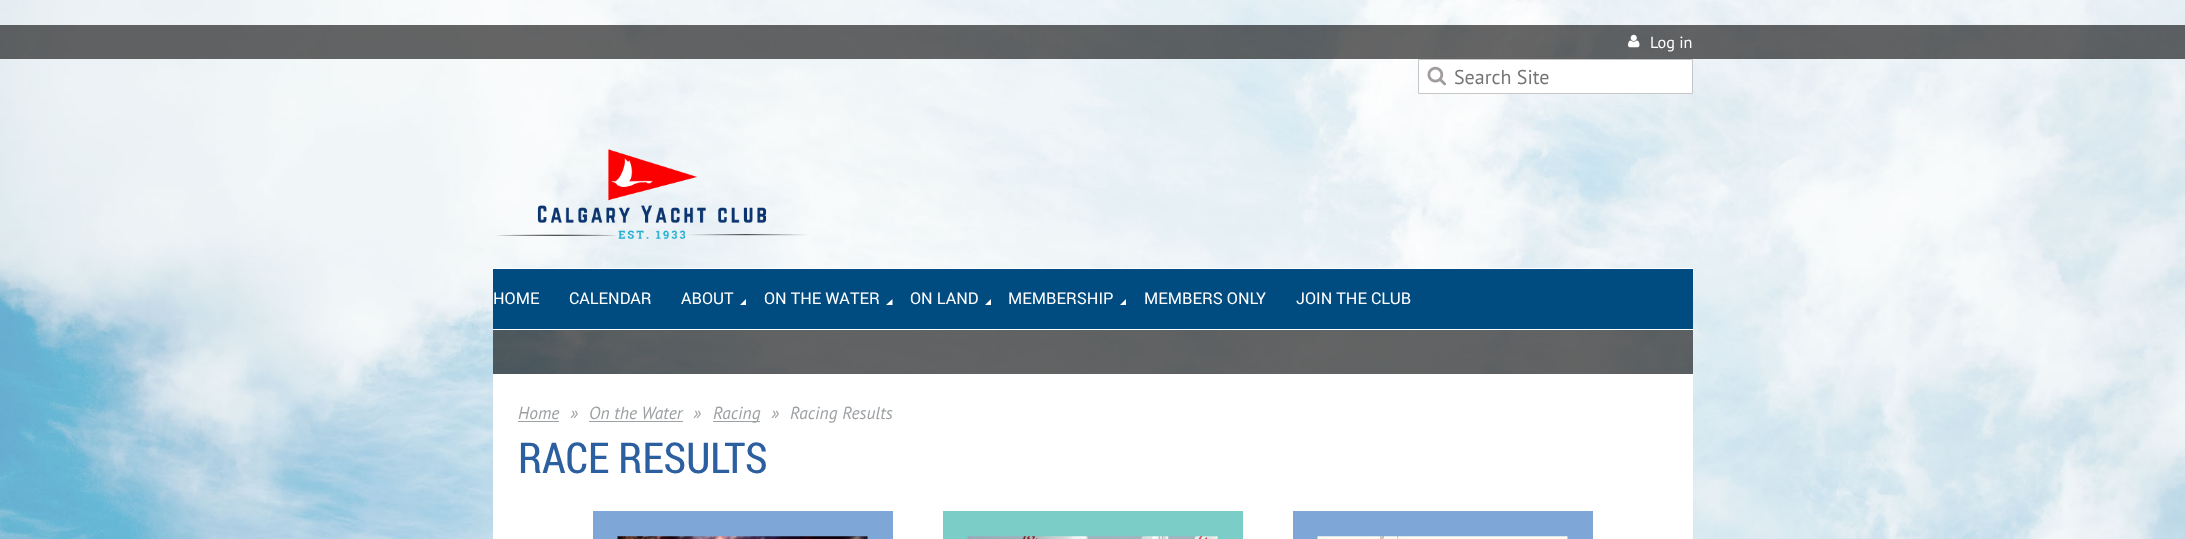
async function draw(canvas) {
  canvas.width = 2185
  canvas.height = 539
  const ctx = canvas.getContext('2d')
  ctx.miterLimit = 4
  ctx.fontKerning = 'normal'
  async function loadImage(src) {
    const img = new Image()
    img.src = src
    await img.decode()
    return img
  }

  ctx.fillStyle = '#fff'
  ctx.fillRect(0, 0, 2185, 539)
  ctx.drawImage(await loadImage('image0.png'), 0, 0, 2185, 539)
  ctx.fillStyle = '#00000099'
  ctx.fillRect(0, 25, 2185, 34)
  ctx.drawImage(await loadImage('image1.png'), 1628, 34, 12, 14)
  ctx.font = '16.25px PT Sans'
  ctx.fillStyle = '#fff'
  ctx.fillText('Log in', 1650, 48)
  ctx.beginPath()
  ctx.rect(1418.5, 59.5, 274, 34)
  ctx.fill()
  ctx.strokeStyle = '#c6c6c6'
  ctx.stroke()
  ctx.drawImage(await loadImage('image2.png'), 1427, 66, 19, 20)
  ctx.font = '20px PT Sans'
  ctx.fillStyle = '#757575'
  ctx.fillText('Search Site', 1454, 84)
  ctx.drawImage(await loadImage('image3.png'), 497, 149, 309, 91)
  ctx.fillStyle = '#004b80'
  ctx.fillRect(493, 269, 1200, 60)
  ctx.fillStyle = '#fff'
  ctx.fillRect(493, 268, 1200, 1)
  ctx.fillRect(493, 329, 1200, 1)
  ctx.font = '16.25px Roboto'
  ctx.fillText('HOME', 493, 304)
  ctx.fillText('CALENDAR', 569, 304)
  ctx.fillText('ABOUT', 681, 304)
  ctx.beginPath()
  ctx.moveTo(746, 305)
  ctx.lineTo(740, 305)
  ctx.lineTo(746, 299)
  ctx.closePath()
  ctx.fill()
  ctx.fillText('ON THE WATER', 764, 304)
  ctx.beginPath()
  ctx.moveTo(892.5, 305)
  ctx.lineTo(886, 305)
  ctx.lineTo(892.5, 299)
  ctx.closePath()
  ctx.fill()
  ctx.fillText('ON LAND', 910, 304)
  ctx.beginPath()
  ctx.moveTo(991, 305)
  ctx.lineTo(985, 305)
  ctx.lineTo(991, 299)
  ctx.closePath()
  ctx.fill()
  ctx.fillText('MEMBERSHIP', 1008, 304)
  ctx.beginPath()
  ctx.moveTo(1126, 305)
  ctx.lineTo(1120, 305)
  ctx.lineTo(1126, 299)
  ctx.closePath()
  ctx.fill()
  ctx.fillText('MEMBERS ONLY', 1144, 304)
  ctx.fillText('JOIN THE CLUB', 1296, 304)
  ctx.fillStyle = '#00000099'
  ctx.fillRect(493, 330, 1200, 44)
  ctx.fillStyle = '#fff'
  ctx.fillRect(493, 374, 1200, 165)
  ctx.font = 'italic 17.5px PT Sans'
  ctx.fillStyle = '#9da1a3'
  ctx.fillText('Home', 518, 419)
  ctx.fillRect(518, 421, 41, 1)
  ctx.fillText('»', 570, 419)
  ctx.fillText('On the Water', 589, 419)
  ctx.fillRect(589, 421, 94, 1)
  ctx.fillText('»', 693, 419)
  ctx.fillRect(713, 421, 47, 1)
  ctx.fillText('Racing', 713, 419)
  ctx.fillText('»', 771, 419)
  ctx.fillText('Racing Results', 790, 419)
  ctx.font = '42.5px Roboto Condensed'
  ctx.fillStyle = '#2c5f9f'
  ctx.fillText('RACE RESULTS', 518, 473)
  ctx.fillStyle = '#7ea7d8'
  ctx.fillRect(593, 511, 300, 28)
  ctx.drawImage(await loadImage('image4.png'), 617, 536, 251, 3)
  ctx.fillStyle = '#7bcdc8'
  ctx.fillRect(943, 511, 300, 28)
  ctx.drawImage(await loadImage('image5.png'), 967, 536, 251, 3)
  ctx.fillStyle = '#7ea7d8'
  ctx.fillRect(1293, 511, 300, 28)
  ctx.drawImage(await loadImage('image6.png'), 1317, 536, 251, 3)
}

draw(document.querySelector('canvas'))
